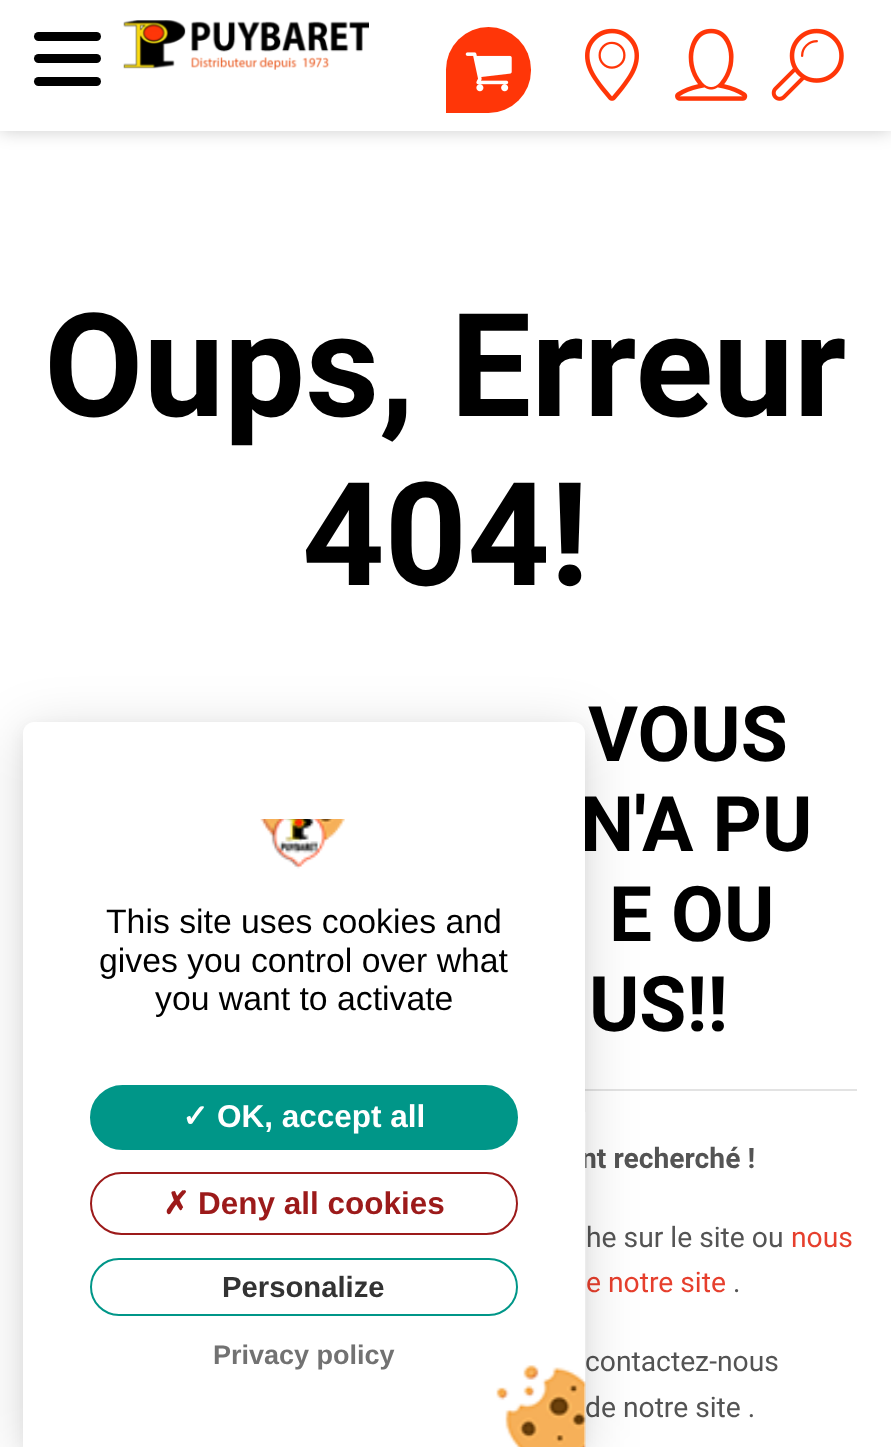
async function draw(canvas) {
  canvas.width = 891
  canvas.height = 1447
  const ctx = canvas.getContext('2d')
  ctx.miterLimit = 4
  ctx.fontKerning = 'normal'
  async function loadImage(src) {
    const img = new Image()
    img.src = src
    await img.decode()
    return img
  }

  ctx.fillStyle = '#fff'
  ctx.fillRect(0, 0, 891, 1447)
  ctx.fillStyle = '#00000033'
  ctx.filter = 'blur(9px)'
  ctx.beginPath()
  ctx.rect(0, 0, 891, 131)
  ctx.fill()
  ctx.filter = 'none'
  ctx.fillStyle = '#fff'
  ctx.fillRect(0, 0, 891, 131)
  ctx.fillStyle = '#000'
  ctx.beginPath()
  ctx.roundRect(34, 54, 67, 9, 4.5)
  ctx.fill()
  ctx.beginPath()
  ctx.roundRect(34, 32, 67, 9, 4.5)
  ctx.fill()
  ctx.beginPath()
  ctx.roundRect(34, 77, 67, 9, 4.5)
  ctx.fill()
  ctx.drawImage(await loadImage('image0.png'), 123, 20, 246, 50)
  ctx.fillStyle = '#ff3608'
  ctx.beginPath()
  ctx.roundRect(446, 27, 85, 86, [42.5, 42.5, 42.5, 0])
  ctx.fill()
  ctx.drawImage(await loadImage('image1.png'), 465, 52, 47, 40)
  ctx.drawImage(await loadImage('image2.png'), 585, 28, 54, 73)
  ctx.drawImage(await loadImage('image3.png'), 675, 28, 73, 73)
  ctx.drawImage(await loadImage('image4.png'), 771, 28, 73, 73)
  ctx.fillStyle = '#e3e3e3'
  ctx.fillRect(585, 1089, 272, 2)
  ctx.font = 'bold 144px Roboto'
  ctx.fillStyle = '#000'
  ctx.fillText('Oups, Erreur', 44, 416)
  ctx.fillText('404!', 302, 585)
  ctx.font = 'bold 76.5px Roboto'
  ctx.fillText('VOUS', 588, 761)
  ctx.fillText('N\'A PU', 580, 851)
  ctx.fillText('E OU', 609, 941)
  ctx.fillText('US!!', 589, 1031)
  ctx.font = 'bold 28.25px Roboto'
  ctx.fillStyle = '#545454'
  ctx.fillText('nt recherché !', 581, 1168)
  ctx.font = '28.25px Roboto'
  ctx.fillText('he sur le site ou', 586, 1247)
  ctx.fillStyle = '#e63f2d'
  ctx.fillText('nous', 791, 1247)
  ctx.fillText('e notre site', 586, 1292)
  ctx.fillStyle = '#545454'
  ctx.fillText('.', 733, 1292)
  ctx.fillText('contactez-nous', 585, 1371)
  ctx.fillText('de notre site .', 585, 1417)
  ctx.fillStyle = '#0000000d'
  ctx.filter = 'blur(7px)'
  ctx.beginPath()
  ctx.roundRect(23, 727, 562, 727, 11)
  ctx.fill()
  ctx.filter = 'none'
  ctx.fillStyle = '#00000026'
  ctx.filter = 'blur(27px)'
  ctx.beginPath()
  ctx.roundRect(23, 731, 562, 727, 11)
  ctx.fill()
  ctx.filter = 'none'
  ctx.fillStyle = '#fff'
  ctx.beginPath()
  ctx.moveTo(34, 722)
  ctx.lineTo(574, 722)
  ctx.bezierCurveTo(580, 722, 585, 727, 585, 733)
  ctx.lineTo(585, 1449)
  ctx.lineTo(23, 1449)
  ctx.lineTo(23, 733)
  ctx.bezierCurveTo(23, 727, 28, 722, 34, 722)
  ctx.closePath()
  ctx.fill()
  ctx.drawImage(await loadImage('image5.png'), 496, 1112, 90, 335)
  ctx.drawImage(await loadImage('image6.png'), 260, 819, 85, 50)
  ctx.font = '33.75px Liberation Sans'
  ctx.fillStyle = '#000'
  ctx.fillText('This site uses cookies and', 106, 933)
  ctx.fillText('gives you control over what', 99, 972)
  ctx.fillText('you want to activate', 155, 1010)
  ctx.fillStyle = '#009688'
  ctx.beginPath()
  ctx.roundRect(91, 1086, 426, 63, 31.5)
  ctx.fill()
  ctx.strokeStyle = '#009688'
  ctx.lineWidth = 2
  ctx.stroke()
  ctx.font = 'bold 31.5px DejaVu Sans'
  ctx.fillStyle = '#fff'
  ctx.fillText('✓', 182, 1127)
  ctx.font = 'bold 31.5px Liberation Sans'
  ctx.fillText('OK, accept all', 217, 1127)
  ctx.beginPath()
  ctx.roundRect(91, 1173, 426, 61, 30.5)
  ctx.strokeStyle = '#9c1a1a'
  ctx.stroke()
  ctx.font = 'bold 31.5px DejaVu Sans'
  ctx.fillStyle = '#9c1a1a'
  ctx.fillText('✗', 163, 1214)
  ctx.font = 'bold 31.5px Liberation Sans'
  ctx.fillText('Deny all cookies', 198, 1214)
  ctx.beginPath()
  ctx.roundRect(91, 1259, 426, 56, 28)
  ctx.strokeStyle = '#009688'
  ctx.stroke()
  ctx.font = 'bold 29.25px Liberation Sans'
  ctx.fillStyle = '#333'
  ctx.fillText('Personalize', 222, 1297)
  ctx.font = 'bold 27px Liberation Sans'
  ctx.fillStyle = '#727272'
  ctx.fillText('Privacy policy', 213, 1364)
}

draw(document.querySelector('canvas'))
